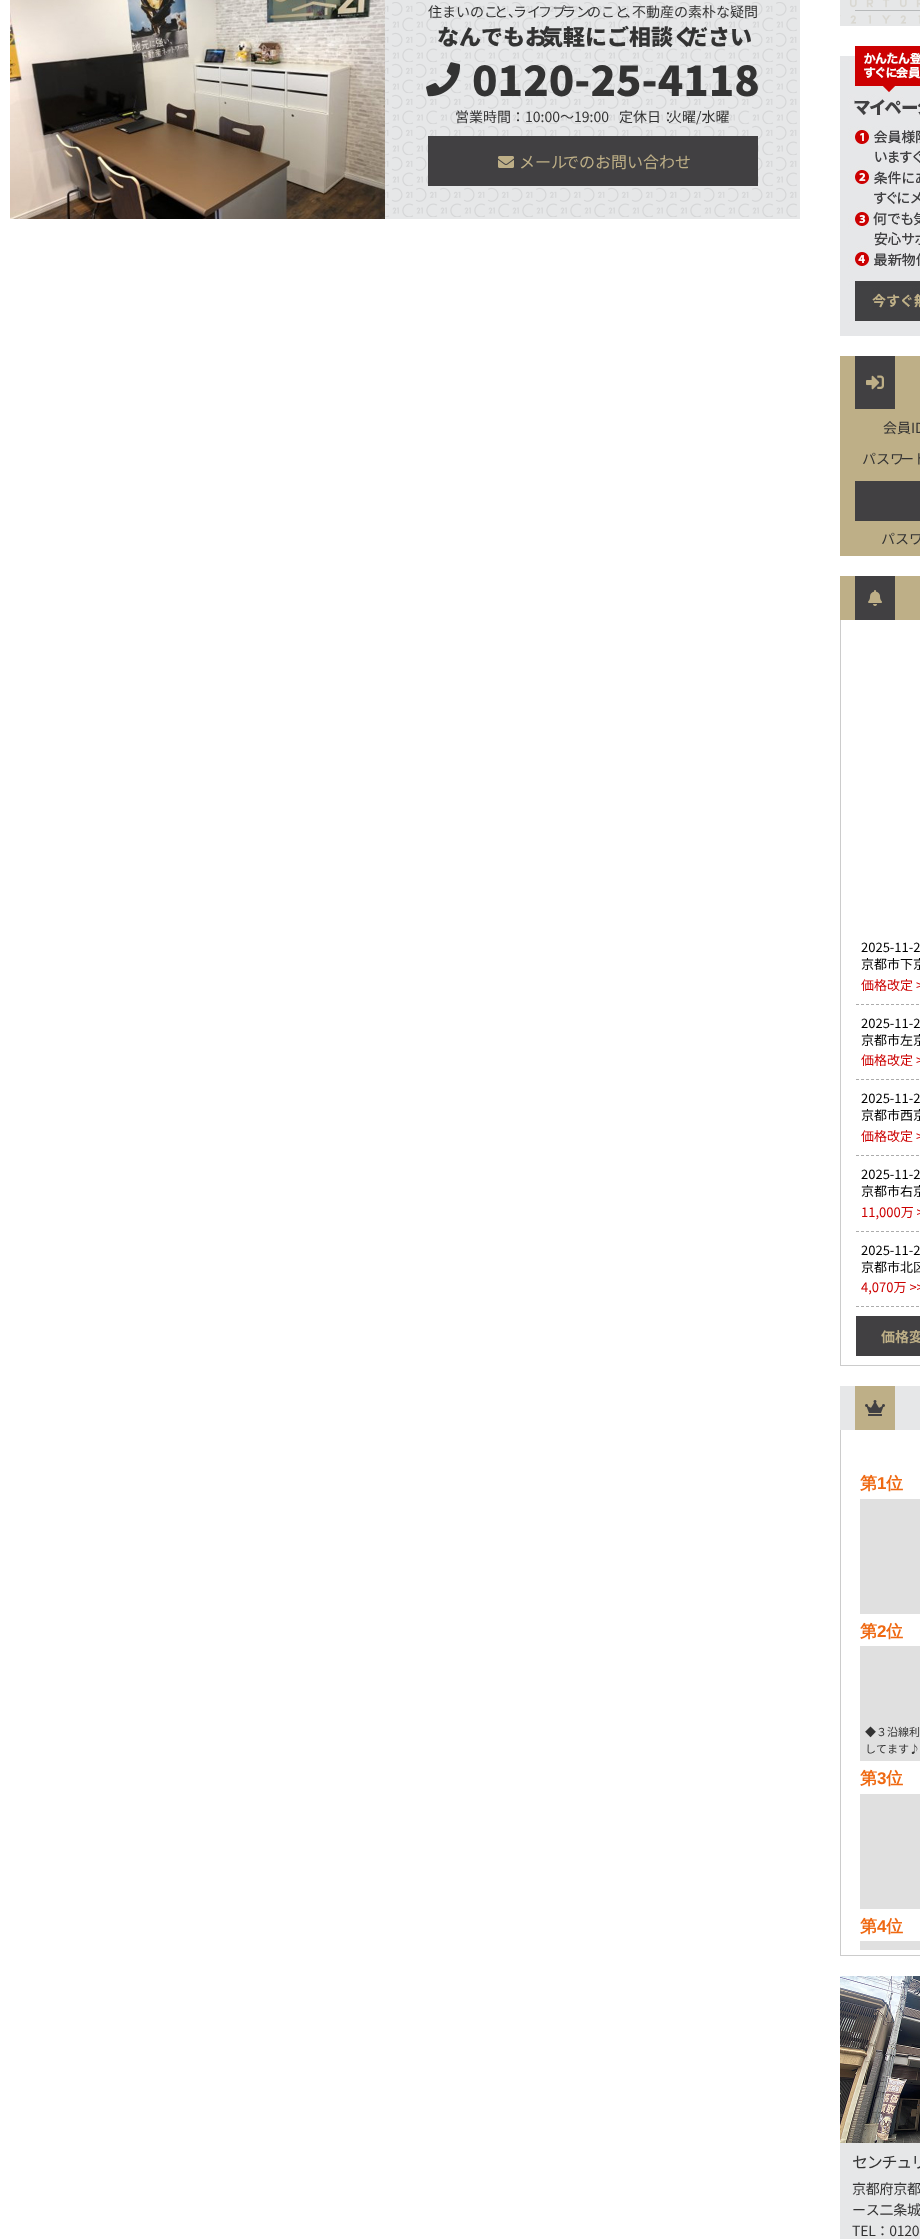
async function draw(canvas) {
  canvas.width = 920
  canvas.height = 2239
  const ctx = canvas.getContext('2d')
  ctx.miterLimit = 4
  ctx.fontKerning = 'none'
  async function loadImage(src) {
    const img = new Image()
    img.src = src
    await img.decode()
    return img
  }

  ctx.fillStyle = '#fff'
  ctx.fillRect(0, 0, 920, 2239)
  ctx.fillStyle = '#e6e7e8'
  ctx.fillRect(385, 0, 415, 219)
  ctx.drawImage(await loadImage('image0.png'), 385, 2, 412, 215)
  ctx.drawImage(await loadImage('image1.png'), 10, 0, 375, 219)
  ctx.font = '14px Noto Sans JP'
  ctx.fillStyle = '#333'
  ctx.fillText('住まいのこ', 428, 17)
  ctx.fillText('と、', 494, 17)
  ctx.fillText('ライ', 513, 17)
  ctx.fillText('フプ', 538, 17)
  ctx.fillText('ラン', 562, 17)
  ctx.fillText('のこと', 587, 17)
  ctx.fillText('、', 625, 17)
  ctx.fillText('不動産の素朴な疑問', 632, 17)
  ctx.font = '900 22px Noto Sans JP'
  ctx.fillText('なんでもお', 437, 45)
  ctx.fillText('気軽にご相談く', 541, 45)
  ctx.fillText('ださい', 686, 45)
  ctx.drawImage(await loadImage('image2.png'), 426, 62, 35, 35)
  ctx.font = '900 42px Noto Sans JP'
  ctx.fillText('0120-25-4118', 472, 96)
  ctx.font = '14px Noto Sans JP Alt'
  ctx.fillText('営業時間：10:00～19:00', 455, 122)
  ctx.font = '14px Noto Sans JP'
  ctx.fillText('定休日：', 619, 122)
  ctx.fillText('火曜/水曜', 668, 122)
  ctx.fillStyle = '#414042'
  ctx.fillRect(428, 136, 330, 50)
  ctx.drawImage(await loadImage('image3.png'), 498, 156, 16, 12)
  ctx.font = '16px Noto Sans JP'
  ctx.fillStyle = '#beaf87'
  ctx.fillText('メール', 519, 168)
  ctx.fillText('でのお問い合わせ', 563, 168)
  ctx.fillStyle = '#e6e7e8'
  ctx.fillRect(840, 24, 80, 2)
  ctx.drawImage(await loadImage('image4.png'), 840, 0, 80, 24)
  ctx.fillStyle = '#b7b9ba'
  ctx.fillRect(855, 10, 65, 1)
  ctx.drawImage(await loadImage('image5.png'), 840, 46, 80, 290)
  ctx.fillStyle = '#beaf87'
  ctx.fillRect(840, 356, 80, 200)
  ctx.fillStyle = '#414042'
  ctx.fillRect(855, 356, 40, 53)
  ctx.drawImage(await loadImage('image6.png'), 866, 375, 18, 15)
  ctx.font = '14px Noto Sans JP'
  ctx.fillStyle = '#333'
  ctx.fillText('会員ID', 883, 433)
  ctx.fillText('パスワ', 862, 464)
  ctx.fillText('ード', 900, 464)
  ctx.fillStyle = '#414042'
  ctx.fillRect(855, 481, 65, 40)
  ctx.fillStyle = '#333'
  ctx.fillText('パスワ', 881, 544)
  ctx.fillStyle = '#beaf87'
  ctx.fillRect(840, 576, 80, 44)
  ctx.fillStyle = '#414042'
  ctx.fillRect(855, 576, 40, 44)
  ctx.drawImage(await loadImage('image7.png'), 868, 590, 14, 16)
  ctx.fillStyle = '#ccc'
  ctx.fillRect(840, 1365, 80, 1)
  ctx.fillRect(840, 620, 1, 746)
  ctx.beginPath()
  ctx.moveTo(856, 1004.5)
  ctx.lineTo(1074, 1004.5)
  ctx.strokeStyle = '#acacac'
  ctx.setLineDash([3, 2])
  ctx.stroke()
  ctx.font = '13px Noto Sans JP'
  ctx.fillStyle = '#000'
  ctx.fillText('2025-11-2', 861, 952)
  ctx.fillText('京都市下京', 861, 969)
  ctx.fillStyle = '#c00'
  ctx.fillText('価格改定 >', 861, 990)
  ctx.beginPath()
  ctx.moveTo(856, 1079.5)
  ctx.lineTo(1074, 1079.5)
  ctx.stroke()
  ctx.fillStyle = '#000'
  ctx.fillText('2025-11-2', 861, 1028)
  ctx.fillText('京都市左京', 861, 1045)
  ctx.fillStyle = '#c00'
  ctx.fillText('価格改定 >', 861, 1065)
  ctx.beginPath()
  ctx.moveTo(856, 1155.5)
  ctx.lineTo(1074, 1155.5)
  ctx.stroke()
  ctx.fillStyle = '#000'
  ctx.fillText('2025-11-2', 861, 1103)
  ctx.fillText('京都市西京', 861, 1120)
  ctx.fillStyle = '#c00'
  ctx.fillText('価格改定 >', 861, 1141)
  ctx.beginPath()
  ctx.moveTo(856, 1231.5)
  ctx.lineTo(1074, 1231.5)
  ctx.stroke()
  ctx.fillStyle = '#000'
  ctx.fillText('2025-11-2', 861, 1179)
  ctx.fillText('京都市右京', 861, 1196)
  ctx.fillStyle = '#c00'
  ctx.fillText('11,000万 >', 861, 1217)
  ctx.beginPath()
  ctx.moveTo(856, 1306.5)
  ctx.lineTo(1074, 1306.5)
  ctx.stroke()
  ctx.fillStyle = '#000'
  ctx.fillText('2025-11-2', 861, 1255)
  ctx.fillText('京都市北区', 861, 1272)
  ctx.fillStyle = '#c00'
  ctx.fillText('4,070万 >>', 861, 1292)
  ctx.fillStyle = '#414042'
  ctx.fillRect(856, 1316, 64, 40)
  ctx.font = 'bold 14px Noto Sans JP'
  ctx.fillStyle = '#beaf87'
  ctx.fillText('価格変', 881, 1342)
  ctx.fillStyle = '#e6e7e8'
  ctx.fillRect(840, 1386, 80, 44)
  ctx.fillStyle = '#beaf87'
  ctx.fillRect(855, 1386, 40, 44)
  ctx.drawImage(await loadImage('image8.png'), 865, 1400, 20, 16)
  ctx.fillStyle = '#ccc'
  ctx.fillRect(840, 1955, 80, 1)
  ctx.fillRect(840, 1430, 1, 526)
  ctx.font = 'bold 17px WenQuanYi Zen Hei'
  ctx.fillStyle = '#ef6912'
  ctx.fillText('第', 860, 1489)
  ctx.font = 'bold 17px Liberation Sans'
  ctx.fillText('1', 877, 1489)
  ctx.font = 'bold 17px WenQuanYi Zen Hei'
  ctx.fillText('位', 886, 1489)
  ctx.fillStyle = '#e0e0e0'
  ctx.fillRect(860, 1499, 60, 115)
  ctx.fillStyle = '#ef6912'
  ctx.fillText('第', 860, 1637)
  ctx.font = 'bold 17px Liberation Sans'
  ctx.fillText('2', 877, 1637)
  ctx.font = 'bold 17px WenQuanYi Zen Hei'
  ctx.fillText('位', 886, 1637)
  ctx.fillStyle = '#e0e0e0'
  ctx.fillRect(860, 1646, 60, 115)
  ctx.font = '11px Noto Sans JP'
  ctx.fillStyle = '#333'
  ctx.fillText('◆３沿線利', 865, 1736)
  ctx.fillText('してます♪', 865, 1753)
  ctx.font = 'bold 17px WenQuanYi Zen Hei'
  ctx.fillStyle = '#ef6912'
  ctx.fillText('第', 860, 1784)
  ctx.font = 'bold 17px Liberation Sans'
  ctx.fillText('3', 877, 1784)
  ctx.font = 'bold 17px WenQuanYi Zen Hei'
  ctx.fillText('位', 886, 1784)
  ctx.fillStyle = '#e0e0e0'
  ctx.fillRect(860, 1794, 60, 115)
  ctx.fillStyle = '#ef6912'
  ctx.fillText('第', 860, 1932)
  ctx.font = 'bold 17px Liberation Sans'
  ctx.fillText('4', 877, 1932)
  ctx.font = 'bold 17px WenQuanYi Zen Hei'
  ctx.fillText('位', 886, 1932)
  ctx.fillStyle = '#e0e0e0'
  ctx.fillRect(860, 1941, 60, 9)
  ctx.fillStyle = '#e6e7e8'
  ctx.fillRect(840, 2143, 80, 96)
  ctx.drawImage(await loadImage('image9.png'), 840, 1976, 80, 167)
  ctx.letterSpacing = '-1.25px'
  ctx.font = '16px Noto Sans JP Alt'
  ctx.fillStyle = '#333'
  ctx.fillText('センチュリ', 852, 2168)
  ctx.letterSpacing = '-0.25px'
  ctx.font = '14px Noto Sans JP Alt'
  ctx.fillText('京都府京都', 852, 2194)
  ctx.font = '14px Noto Sans JP'
  ctx.fillText('ース二条城', 852, 2215)
  ctx.font = '14px Noto Sans JP Alt'
  ctx.fillText('TEL：0120-', 852, 2236)
}

draw(document.querySelector('canvas'))
